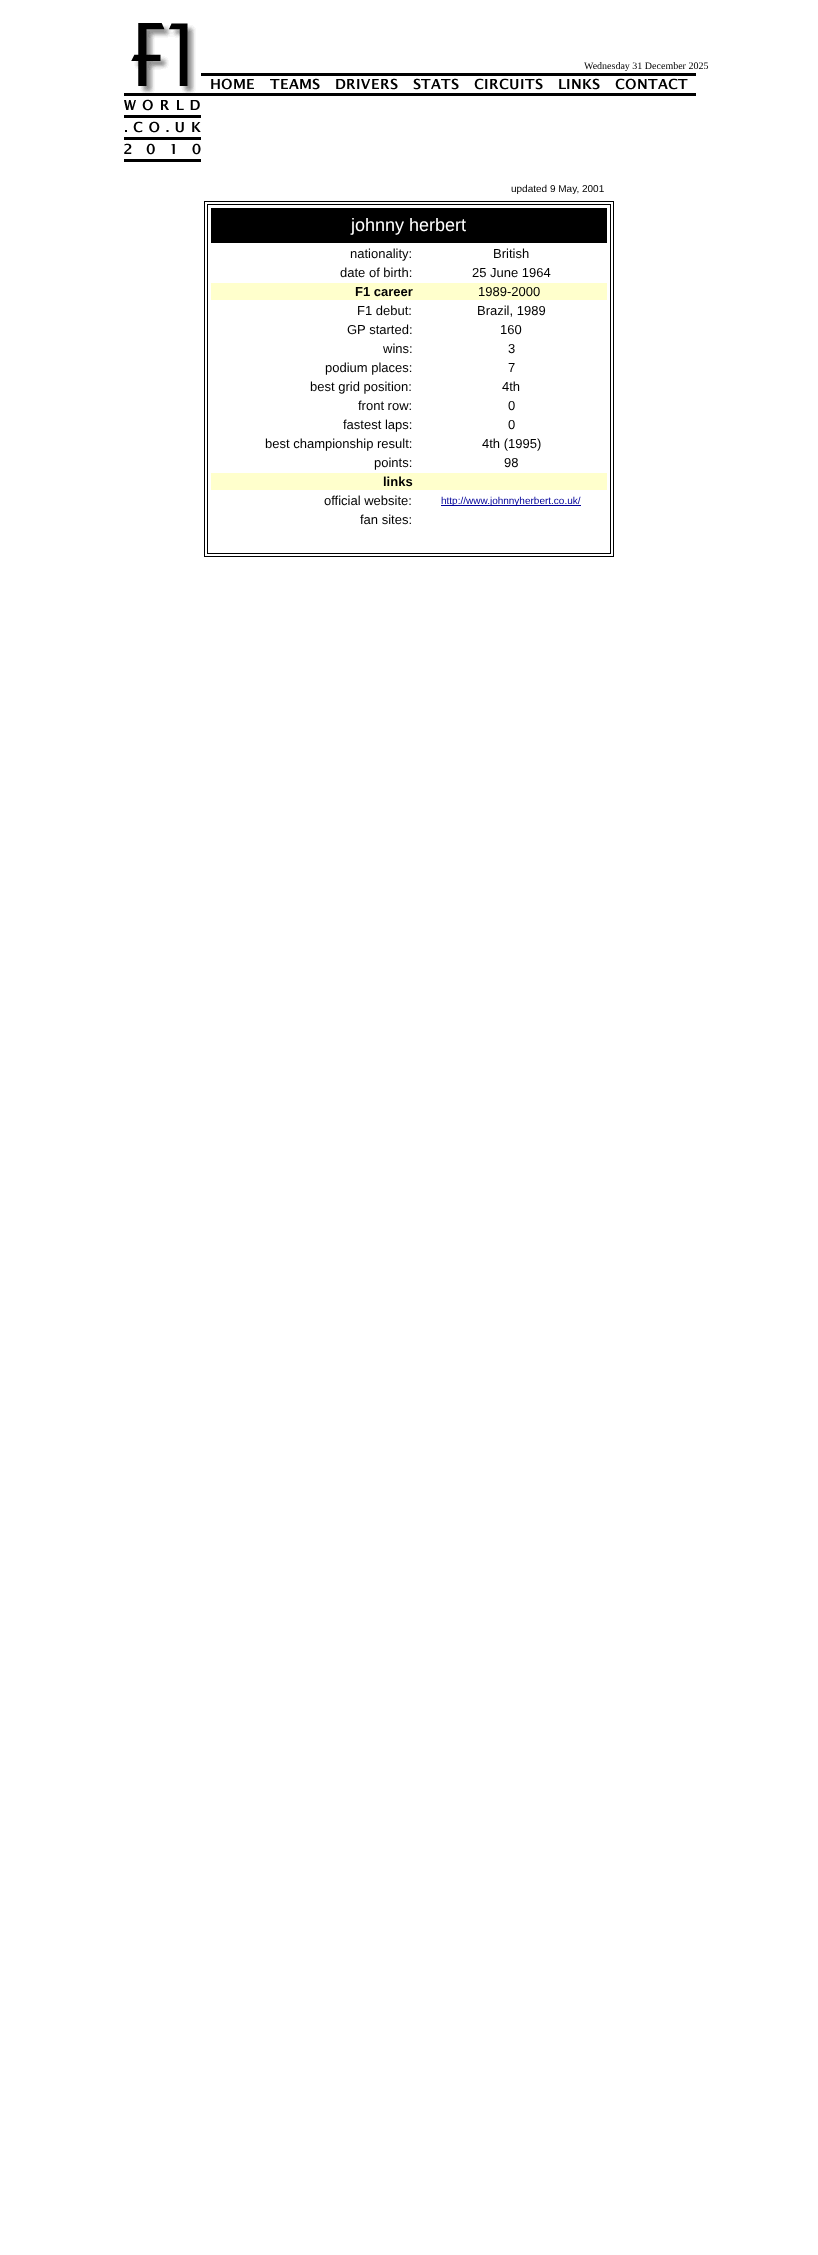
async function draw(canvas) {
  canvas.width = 818
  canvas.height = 2255
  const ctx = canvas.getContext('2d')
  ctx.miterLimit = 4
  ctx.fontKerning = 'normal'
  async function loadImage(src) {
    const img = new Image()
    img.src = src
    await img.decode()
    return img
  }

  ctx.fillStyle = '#fff'
  ctx.fillRect(0, 0, 818, 2255)
  ctx.drawImage(await loadImage('image0.png'), 124, 23, 77, 139)
  ctx.font = '10px Liberation Serif'
  ctx.fillStyle = '#000'
  ctx.fillText('Wednesday 31 December 2025', 584, 69)
  ctx.drawImage(await loadImage('image1.png'), 201, 73, 61, 23)
  ctx.drawImage(await loadImage('image2.png'), 262, 73, 65, 23)
  ctx.drawImage(await loadImage('image3.png'), 327, 73, 77, 23)
  ctx.drawImage(await loadImage('image4.png'), 404, 73, 64, 23)
  ctx.drawImage(await loadImage('image5.png'), 468, 73, 83, 23)
  ctx.drawImage(await loadImage('image6.png'), 551, 73, 56, 23)
  ctx.drawImage(await loadImage('image7.png'), 607, 71, 89, 25)
  ctx.font = '10px Liberation Sans'
  ctx.fillText('updated 9 May, 2001', 511, 192)
  ctx.strokeStyle = '#000'
  ctx.strokeRect(204.5, 201.5, 409, 355)
  ctx.strokeRect(207.5, 204.5, 403, 349)
  ctx.fillRect(211, 208, 396, 35)
  ctx.font = '18px Liberation Sans'
  ctx.fillStyle = '#fff'
  ctx.fillText('johnny herbert', 351, 231)
  ctx.font = '13px Liberation Sans'
  ctx.fillStyle = '#000'
  ctx.fillText('nationality:', 350, 258)
  ctx.fillText('British', 493, 258)
  ctx.fillText('date of birth:', 340, 277)
  ctx.fillText('25 June 1964', 472, 277)
  ctx.fillStyle = '#ffc'
  ctx.fillRect(211, 283, 396, 17)
  ctx.font = 'bold 13px Liberation Sans'
  ctx.fillStyle = '#000'
  ctx.fillText('F1 career', 355, 296)
  ctx.font = '13px Liberation Sans'
  ctx.fillText('1989-2000', 478, 296)
  ctx.fillText('F1 debut:', 357, 315)
  ctx.fillText('Brazil, 1989', 477, 315)
  ctx.fillText('GP started:', 347, 334)
  ctx.fillText('160', 500, 334)
  ctx.fillText('wins:', 383, 353)
  ctx.fillText('3', 508, 353)
  ctx.fillText('podium places:', 325, 372)
  ctx.fillText('7', 508, 372)
  ctx.fillText('best grid position:', 310, 391)
  ctx.fillText('4th', 502, 391)
  ctx.fillText('front row:', 358, 410)
  ctx.fillText('0', 508, 410)
  ctx.fillText('fastest laps:', 343, 429)
  ctx.fillText('0', 508, 429)
  ctx.fillText('best championship result:', 265, 448)
  ctx.fillText('4th (1995)', 482, 448)
  ctx.fillText('points:', 374, 467)
  ctx.fillText('98', 504, 467)
  ctx.fillStyle = '#ffc'
  ctx.fillRect(211, 473, 396, 17)
  ctx.font = 'bold 13px Liberation Sans'
  ctx.fillStyle = '#000'
  ctx.fillText('links', 383, 486)
  ctx.font = '13px Liberation Sans'
  ctx.fillText('official website:', 324, 505)
  ctx.fillStyle = '#009'
  ctx.fillRect(441, 505, 140, 1)
  ctx.font = '10px Liberation Sans'
  ctx.fillText('http://www.johnnyherbert.co.uk/', 441, 504)
  ctx.font = '13px Liberation Sans'
  ctx.fillStyle = '#000'
  ctx.fillText('fan sites:', 360, 524)
}

draw(document.querySelector('canvas'))
